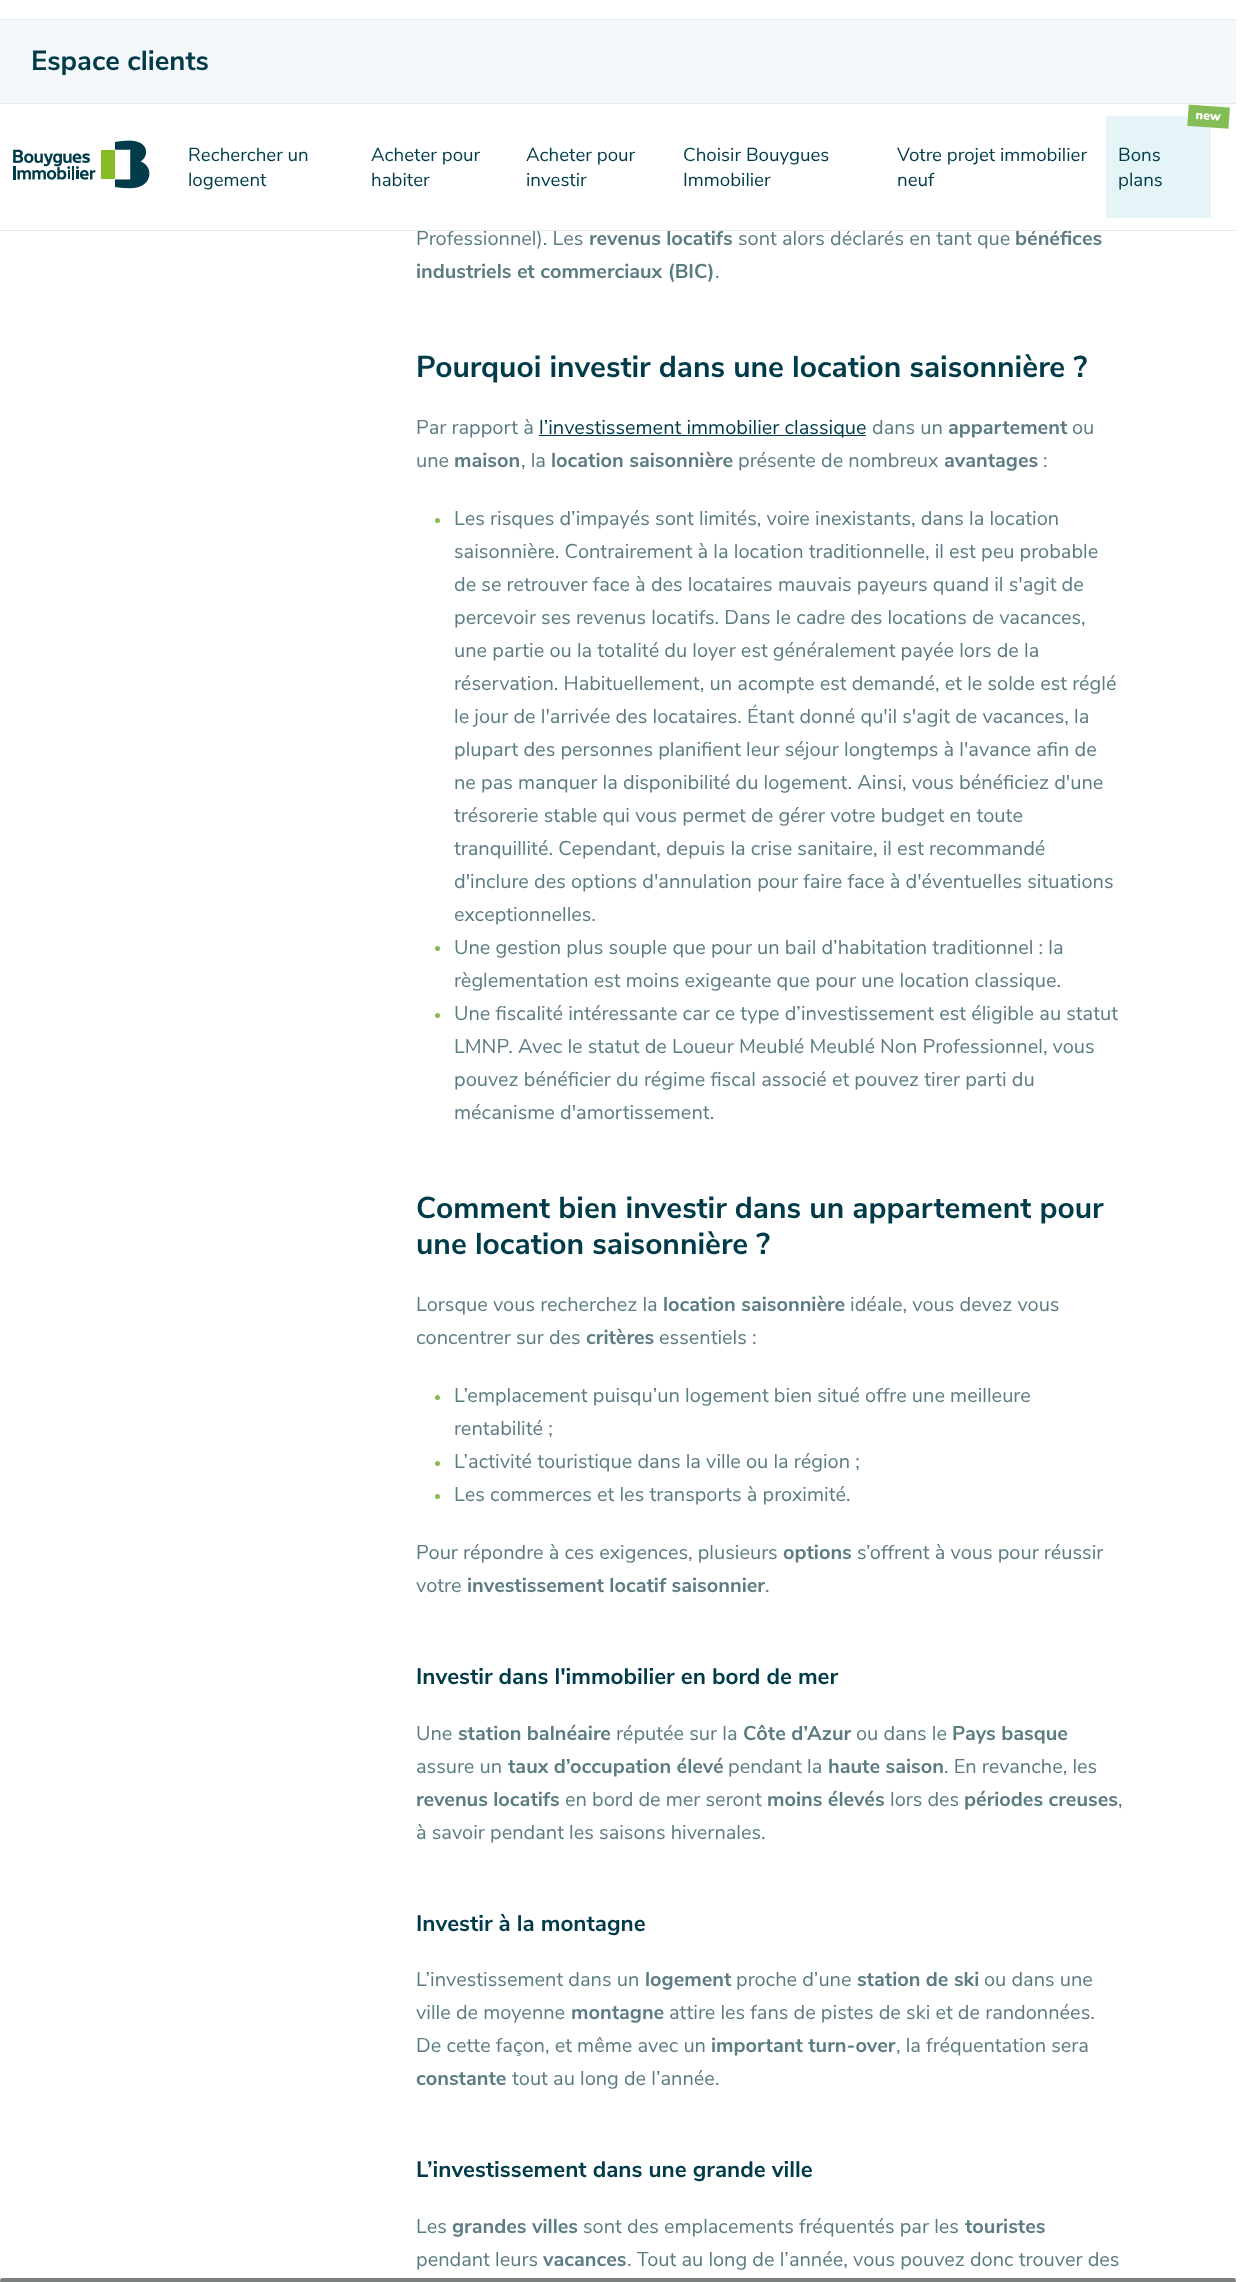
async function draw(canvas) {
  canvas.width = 1255
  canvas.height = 2282
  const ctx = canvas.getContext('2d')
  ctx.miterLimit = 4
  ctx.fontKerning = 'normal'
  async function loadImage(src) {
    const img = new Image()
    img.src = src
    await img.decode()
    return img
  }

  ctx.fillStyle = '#fff'
  ctx.fillRect(0, 0, 1255, 2282)
  ctx.font = '20px Nunito Sans'
  ctx.fillStyle = '#5c7c83'
  ctx.fillText('sont alors déclarés en tant que', 738, 245)
  ctx.font = 'bold 20px Nunito Sans'
  ctx.fillText('bénéfices', 1015, 245)
  ctx.fillStyle = '#fff'
  ctx.fillRect(848, 229, 211, 1)
  ctx.font = '20px Nunito Sans'
  ctx.fillStyle = '#5c7c83'
  ctx.fillText('Professionnel). Les', 416, 245)
  ctx.font = 'bold 20px Nunito Sans'
  ctx.fillText('revenus locatifs', 589, 245)
  ctx.fillStyle = '#e2ecef'
  ctx.fillRect(0, 230, 1236, 1)
  ctx.fillStyle = '#f5f8fa'
  ctx.fillRect(0, 20, 1236, 83)
  ctx.fillStyle = '#e2ecef'
  ctx.fillRect(0, 19, 1236, 1)
  ctx.fillRect(0, 103, 1236, 1)
  ctx.font = 'bold 27.5px Nunito Sans'
  ctx.fillStyle = '#003b4a'
  ctx.fillText('Espace clients', 31, 70)
  ctx.drawImage(await loadImage('image0.png'), 13, 140, 137, 49)
  ctx.font = '18.75px Nunito Sans'
  ctx.fillText('Rechercher un', 188, 161)
  ctx.fillText('logement', 188, 186)
  ctx.fillText('Acheter pour', 371, 161)
  ctx.fillText('habiter', 371, 186)
  ctx.fillText('Acheter pour', 526, 161)
  ctx.fillText('investir', 526, 186)
  ctx.fillText('Choisir Bouygues', 683, 161)
  ctx.fillText('Immobilier', 683, 186)
  ctx.fillText('Votre projet immobilier', 897, 161)
  ctx.fillText('neuf', 897, 186)
  ctx.fillStyle = '#e5f4f7'
  ctx.fillRect(1106, 116, 105, 102)
  ctx.drawImage(await loadImage('image1.png'), 1187, 104, 43, 25)
  ctx.fillStyle = '#003b4a'
  ctx.fillText('Bons', 1118, 161)
  ctx.fillText('plans', 1118, 186)
  ctx.font = 'bold 20px Nunito Sans'
  ctx.fillStyle = '#5c7c83'
  ctx.fillText('industriels et commerciaux (BIC)', 416, 278)
  ctx.font = '20px Nunito Sans'
  ctx.fillText('.', 715, 278)
  ctx.font = 'bold 30px Nunito Sans'
  ctx.fillStyle = '#003b4a'
  ctx.fillText('Pourquoi investir dans une location saisonnière ?', 416, 377)
  ctx.font = '20px Nunito Sans'
  ctx.fillStyle = '#5c7c83'
  ctx.fillText('Par rapport à', 416, 434)
  ctx.fillStyle = '#003b4a'
  ctx.fillRect(539, 435, 327, 1)
  ctx.fillText('l’investissement immobilier classique', 539, 434)
  ctx.fillStyle = '#5c7c83'
  ctx.fillText('dans un', 872, 434)
  ctx.font = 'bold 20px Nunito Sans'
  ctx.fillText('appartement', 948, 434)
  ctx.font = '20px Nunito Sans'
  ctx.fillText('ou', 1072, 434)
  ctx.fillText('une', 416, 467)
  ctx.font = 'bold 20px Nunito Sans'
  ctx.fillText('maison', 454, 467)
  ctx.font = '20px Nunito Sans'
  ctx.fillText(', la', 521, 467)
  ctx.font = 'bold 20px Nunito Sans'
  ctx.fillText('location saisonnière', 551, 467)
  ctx.font = '20px Nunito Sans'
  ctx.fillText('présente de nombreux', 738, 467)
  ctx.font = 'bold 20px Nunito Sans'
  ctx.fillText('avantages', 944, 467)
  ctx.font = '20px Nunito Sans'
  ctx.fillText(':', 1043, 467)
  ctx.fillStyle = '#84bc56'
  ctx.beginPath()
  ctx.arc(437.5, 520.5, 2.5, 0, 2 * Math.PI)
  ctx.fill()
  ctx.fillStyle = '#5c7c83'
  ctx.fillText('Les risques d’impayés sont limités, voire inexistants, dans la location', 454, 525)
  ctx.fillText('saisonnière. Contrairement à la location traditionnelle, il est peu probable', 454, 558)
  ctx.fillText('de se retrouver face à des locataires mauvais payeurs quand il s\'agit de', 454, 591)
  ctx.fillText('percevoir ses revenus locatifs. Dans le cadre des locations de vacances,', 454, 624)
  ctx.fillText('une partie ou la totalité du loyer est généralement payée lors de la', 454, 657)
  ctx.fillText('réservation. Habituellement, un acompte est demandé, et le solde est réglé', 454, 690)
  ctx.fillText('le jour de l\'arrivée des locataires. Étant donné qu\'il s\'agit de vacances, la', 454, 723)
  ctx.fillText('plupart des personnes planifient leur séjour longtemps à l\'avance afin de', 454, 756)
  ctx.fillText('ne pas manquer la disponibilité du logement. Ainsi, vous bénéficiez d\'une', 454, 789)
  ctx.fillText('trésorerie stable qui vous permet de gérer votre budget en toute', 454, 822)
  ctx.fillText('tranquillité. Cependant, depuis la crise sanitaire, il est recommandé', 454, 855)
  ctx.fillText('d\'inclure des options d\'annulation pour faire face à d\'éventuelles situations', 454, 888)
  ctx.fillText('exceptionnelles.', 454, 921)
  ctx.fillStyle = '#84bc56'
  ctx.beginPath()
  ctx.arc(437.5, 948.5, 2.5, 0, 2 * Math.PI)
  ctx.fill()
  ctx.fillStyle = '#5c7c83'
  ctx.fillText('Une gestion plus souple que pour un bail d’habitation traditionnel : la', 454, 954)
  ctx.fillText('règlementation est moins exigeante que pour une location classique.', 454, 987)
  ctx.fillStyle = '#84bc56'
  ctx.beginPath()
  ctx.arc(437.5, 1015.5, 2.5, 0, 2 * Math.PI)
  ctx.fill()
  ctx.fillStyle = '#5c7c83'
  ctx.fillText('Une fiscalité intéressante car ce type d’investissement est éligible au statut', 454, 1020)
  ctx.fillText('LMNP. Avec le statut de Loueur Meublé Meublé Non Professionnel, vous', 454, 1053)
  ctx.fillText('pouvez bénéficier du régime fiscal associé et pouvez tirer parti du', 454, 1086)
  ctx.fillText('mécanisme d\'amortissement.', 454, 1119)
  ctx.font = 'bold 30px Nunito Sans'
  ctx.fillStyle = '#003b4a'
  ctx.fillText('Comment bien investir dans un appartement pour', 416, 1218)
  ctx.fillText('une location saisonnière ?', 416, 1254)
  ctx.font = '20px Nunito Sans'
  ctx.fillStyle = '#5c7c83'
  ctx.fillText('Lorsque vous recherchez la', 416, 1311)
  ctx.font = 'bold 20px Nunito Sans'
  ctx.fillText('location saisonnière', 663, 1311)
  ctx.font = '20px Nunito Sans'
  ctx.fillText('idéale, vous devez vous', 850, 1311)
  ctx.fillText('concentrer sur des', 416, 1344)
  ctx.font = 'bold 20px Nunito Sans'
  ctx.fillText('critères', 586, 1344)
  ctx.font = '20px Nunito Sans'
  ctx.fillText('essentiels :', 659, 1344)
  ctx.fillStyle = '#84bc56'
  ctx.beginPath()
  ctx.arc(437.5, 1397.5, 2.5, 0, 2 * Math.PI)
  ctx.fill()
  ctx.fillStyle = '#5c7c83'
  ctx.fillText('L’emplacement puisqu’un logement bien situé offre une meilleure', 454, 1402)
  ctx.fillText('rentabilité ;', 454, 1435)
  ctx.fillStyle = '#84bc56'
  ctx.beginPath()
  ctx.arc(437.5, 1463.5, 2.5, 0, 2 * Math.PI)
  ctx.fill()
  ctx.fillStyle = '#5c7c83'
  ctx.fillText('L’activité touristique dans la ville ou la région ;', 454, 1468)
  ctx.fillStyle = '#84bc56'
  ctx.beginPath()
  ctx.arc(437.5, 1496.5, 2.5, 0, 2 * Math.PI)
  ctx.fill()
  ctx.fillStyle = '#5c7c83'
  ctx.fillText('Les commerces et les transports à proximité.', 454, 1501)
  ctx.fillText('Pour répondre à ces exigences, plusieurs', 416, 1559)
  ctx.font = 'bold 20px Nunito Sans'
  ctx.fillText('options', 783, 1559)
  ctx.font = '20px Nunito Sans'
  ctx.fillText('s’offrent à vous pour réussir', 857, 1559)
  ctx.fillText('votre', 416, 1592)
  ctx.font = 'bold 20px Nunito Sans'
  ctx.fillText('investissement locatif saisonnier', 467, 1592)
  ctx.font = '20px Nunito Sans'
  ctx.fillText('.', 765, 1592)
  ctx.font = 'bold 22.5px Nunito Sans'
  ctx.fillStyle = '#003b4a'
  ctx.fillText('Investir dans l\'immobilier en bord de mer', 416, 1684)
  ctx.font = '20px Nunito Sans'
  ctx.fillStyle = '#5c7c83'
  ctx.fillText('Une', 416, 1740)
  ctx.font = 'bold 20px Nunito Sans'
  ctx.fillText('station balnéaire', 458, 1740)
  ctx.font = '20px Nunito Sans'
  ctx.fillText('réputée sur la', 616, 1740)
  ctx.font = 'bold 20px Nunito Sans'
  ctx.fillText('Côte d’Azur', 743, 1740)
  ctx.font = '20px Nunito Sans'
  ctx.fillText('ou dans le', 856, 1740)
  ctx.font = 'bold 20px Nunito Sans'
  ctx.fillText('Pays basque', 952, 1740)
  ctx.font = '20px Nunito Sans'
  ctx.fillText('assure un', 416, 1773)
  ctx.font = 'bold 20px Nunito Sans'
  ctx.fillText('taux d’occupation élevé', 508, 1773)
  ctx.font = '20px Nunito Sans'
  ctx.fillText('pendant la', 728, 1773)
  ctx.font = 'bold 20px Nunito Sans'
  ctx.fillText('haute saison', 828, 1773)
  ctx.font = '20px Nunito Sans'
  ctx.fillText('. En revanche, les', 944, 1773)
  ctx.font = 'bold 20px Nunito Sans'
  ctx.fillText('revenus locatifs', 416, 1806)
  ctx.font = '20px Nunito Sans'
  ctx.fillText('en bord de mer seront', 565, 1806)
  ctx.font = 'bold 20px Nunito Sans'
  ctx.fillText('moins élevés', 767, 1806)
  ctx.font = '20px Nunito Sans'
  ctx.fillText('lors des', 890, 1806)
  ctx.font = 'bold 20px Nunito Sans'
  ctx.fillText('périodes creuses', 964, 1806)
  ctx.font = '20px Nunito Sans'
  ctx.fillText(',', 1118, 1806)
  ctx.fillText('à savoir pendant les saisons hivernales.', 416, 1839)
  ctx.font = 'bold 22.5px Nunito Sans'
  ctx.fillStyle = '#003b4a'
  ctx.fillText('Investir à la montagne', 416, 1931)
  ctx.font = '20px Nunito Sans'
  ctx.fillStyle = '#5c7c83'
  ctx.fillText('L’investissement dans un', 416, 1986)
  ctx.font = 'bold 20px Nunito Sans'
  ctx.fillText('logement', 645, 1986)
  ctx.font = '20px Nunito Sans'
  ctx.fillText('proche d’une', 736, 1986)
  ctx.font = 'bold 20px Nunito Sans'
  ctx.fillText('station de ski', 857, 1986)
  ctx.font = '20px Nunito Sans'
  ctx.fillText('ou dans une', 984, 1986)
  ctx.fillText('ville de moyenne', 416, 2019)
  ctx.font = 'bold 20px Nunito Sans'
  ctx.fillText('montagne', 571, 2019)
  ctx.font = '20px Nunito Sans'
  ctx.fillText('attire les fans de pistes de ski et de randonnées.', 669, 2019)
  ctx.fillText('De cette façon, et même avec un', 416, 2052)
  ctx.font = 'bold 20px Nunito Sans'
  ctx.fillText('important turn-over', 711, 2052)
  ctx.font = '20px Nunito Sans'
  ctx.fillText(', la fréquentation sera', 896, 2052)
  ctx.font = 'bold 20px Nunito Sans'
  ctx.fillText('constante', 416, 2085)
  ctx.font = '20px Nunito Sans'
  ctx.fillText('tout au long de l’année.', 512, 2085)
  ctx.font = 'bold 22.5px Nunito Sans'
  ctx.fillStyle = '#003b4a'
  ctx.fillText('L’investissement dans une grande ville', 416, 2177)
  ctx.font = '20px Nunito Sans'
  ctx.fillStyle = '#5c7c83'
  ctx.fillText('Les', 416, 2233)
  ctx.font = 'bold 20px Nunito Sans'
  ctx.fillText('grandes villes', 452, 2233)
  ctx.font = '20px Nunito Sans'
  ctx.fillText('sont des emplacements fréquentés par les', 583, 2233)
  ctx.font = 'bold 20px Nunito Sans'
  ctx.fillText('touristes', 965, 2233)
  ctx.font = '20px Nunito Sans'
  ctx.fillText('pendant leurs', 416, 2266)
  ctx.font = 'bold 20px Nunito Sans'
  ctx.fillText('vacances', 543, 2266)
  ctx.font = '20px Nunito Sans'
  ctx.fillText('. Tout au long de l’année, vous pouvez donc trouver des', 627, 2266)
  ctx.fillStyle = '#7c7f7f'
  ctx.beginPath()
  ctx.roundRect(0, 2278, 1236, 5, 2.5)
  ctx.fill()
}

draw(document.querySelector('canvas'))
